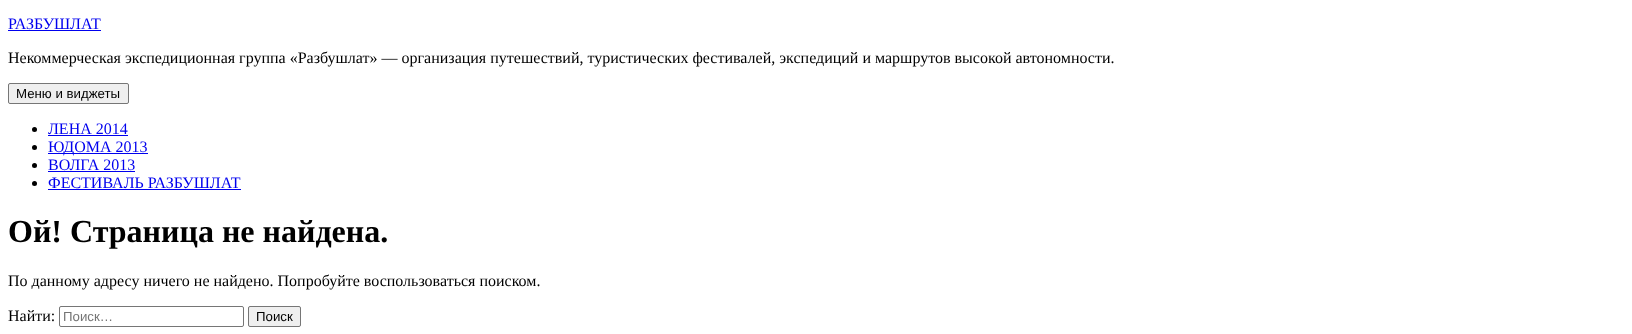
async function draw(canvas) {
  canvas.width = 1632
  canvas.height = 334
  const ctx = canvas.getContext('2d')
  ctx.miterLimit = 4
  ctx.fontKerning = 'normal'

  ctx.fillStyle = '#fff'
  ctx.fillRect(0, 0, 1632, 334)
  ctx.font = '16px Liberation Serif'
  ctx.fillStyle = '#00e'
  ctx.fillText('РАЗБУШЛАТ', 8, 29)
  ctx.fillRect(8, 30, 93, 1)
  ctx.fillStyle = '#000'
  ctx.fillText('Некоммерческая экспедиционная группа «Разбушлат» — организация путешествий, туристических фестивалей, экспедиций и маршрутов высокой автономности.', 8, 63)
  ctx.fillStyle = '#efefef'
  ctx.beginPath()
  ctx.roundRect(8.5, 83.5, 120, 20, 1.5)
  ctx.fill()
  ctx.strokeStyle = '#767676'
  ctx.stroke()
  ctx.font = '13.25px Liberation Sans'
  ctx.fillStyle = '#000'
  ctx.fillText('Меню и виджеты', 16, 98)
  ctx.beginPath()
  ctx.arc(34.5, 129.5, 2.5, 0, 2 * Math.PI)
  ctx.fill()
  ctx.font = '16px Liberation Serif'
  ctx.fillStyle = '#00e'
  ctx.fillText('ЛЕНА 2014', 48, 134)
  ctx.fillRect(48, 135, 80, 1)
  ctx.fillStyle = '#000'
  ctx.beginPath()
  ctx.arc(34.5, 147.5, 2.5, 0, 2 * Math.PI)
  ctx.fill()
  ctx.fillStyle = '#00e'
  ctx.fillRect(48, 153, 100, 1)
  ctx.fillText('ЮДОМА 2013', 48, 152)
  ctx.fillStyle = '#000'
  ctx.beginPath()
  ctx.arc(34.5, 165.5, 2.5, 0, 2 * Math.PI)
  ctx.fill()
  ctx.fillStyle = '#00e'
  ctx.fillText('ВОЛГА 2013', 48, 170)
  ctx.fillRect(48, 171, 87, 1)
  ctx.fillStyle = '#000'
  ctx.beginPath()
  ctx.arc(34.5, 183.5, 2.5, 0, 2 * Math.PI)
  ctx.fill()
  ctx.fillStyle = '#00e'
  ctx.fillText('ФЕСТИВАЛЬ РАЗБУШЛАТ', 48, 188)
  ctx.fillRect(48, 189, 193, 1)
  ctx.font = 'bold 32px Liberation Serif'
  ctx.fillStyle = '#000'
  ctx.fillText('Ой! Страница не найдена.', 8, 242)
  ctx.font = '16px Liberation Serif'
  ctx.fillText('По данному адресу ничего не найдено. Попробуйте воспользоваться поиском.', 8, 286)
  ctx.fillText('Найти:', 8, 321)
  ctx.beginPath()
  ctx.roundRect(59.5, 306.5, 184, 20, 1.5)
  ctx.stroke()
  ctx.font = '13.25px Liberation Sans'
  ctx.fillStyle = '#757575'
  ctx.fillText('Поиск…', 63, 321)
  ctx.fillStyle = '#efefef'
  ctx.beginPath()
  ctx.roundRect(248.5, 306.5, 52, 20, 1.5)
  ctx.fill()
  ctx.stroke()
  ctx.fillStyle = '#000'
  ctx.fillText('Поиск', 256, 321)
}

draw(document.querySelector('canvas'))
